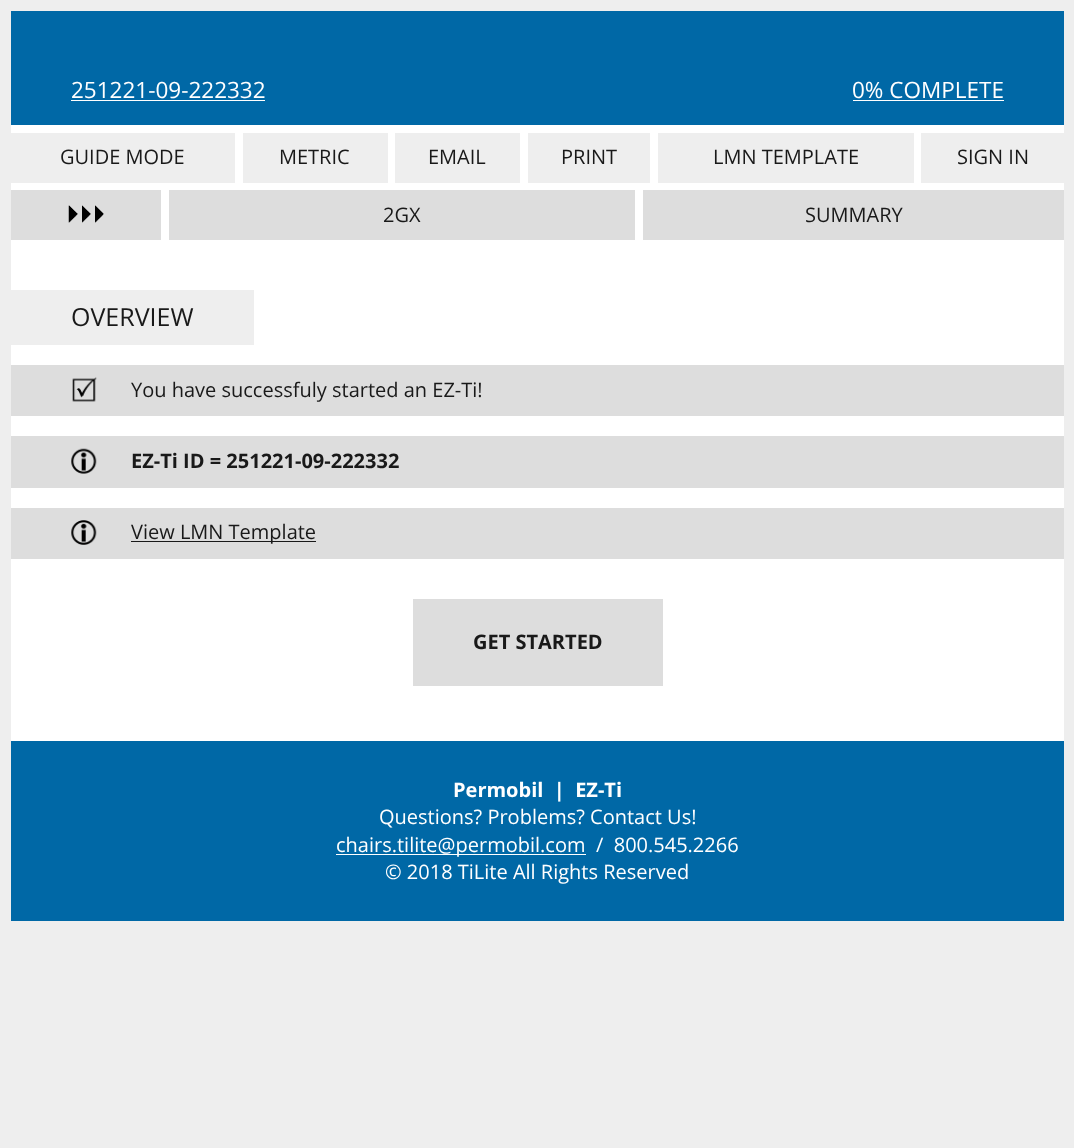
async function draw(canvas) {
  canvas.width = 1074
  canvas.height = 1148
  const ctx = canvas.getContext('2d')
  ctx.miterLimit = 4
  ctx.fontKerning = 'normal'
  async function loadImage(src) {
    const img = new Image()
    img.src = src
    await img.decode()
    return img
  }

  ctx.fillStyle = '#eee'
  ctx.fillRect(0, 0, 1074, 1148)
  ctx.fillStyle = '#fff'
  ctx.fillRect(11, 125, 1053, 616)
  ctx.fillStyle = '#0068a6'
  ctx.fillRect(11, 11, 1053, 114)
  ctx.font = '22.5px Open Sans'
  ctx.fillStyle = '#fff'
  ctx.fillText('251221-09-222332', 71, 98)
  ctx.fillRect(71, 100, 194, 1)
  ctx.fillText('0% COMPLETE', 852, 98)
  ctx.fillRect(853, 100, 151, 1)
  ctx.fillStyle = '#eee'
  ctx.fillRect(11, 133, 1053, 50)
  ctx.fillStyle = '#fff'
  ctx.fillRect(235, 133, 8, 50)
  ctx.font = '20px Open Sans'
  ctx.fillStyle = '#191919'
  ctx.fillText('GUIDE MODE', 60, 164)
  ctx.fillStyle = '#fff'
  ctx.fillRect(388, 133, 7, 50)
  ctx.fillStyle = '#191919'
  ctx.fillText('METRIC', 279, 164)
  ctx.fillStyle = '#fff'
  ctx.fillRect(520, 133, 8, 50)
  ctx.fillStyle = '#191919'
  ctx.fillText('EMAIL', 428, 164)
  ctx.fillStyle = '#fff'
  ctx.fillRect(650, 133, 8, 50)
  ctx.fillStyle = '#191919'
  ctx.fillText('PRINT', 561, 164)
  ctx.fillStyle = '#fff'
  ctx.fillRect(914, 133, 7, 50)
  ctx.fillStyle = '#191919'
  ctx.fillText('LMN TEMPLATE', 713, 164)
  ctx.fillText('SIGN IN', 957, 164)
  ctx.fillStyle = '#ddd'
  ctx.fillRect(11, 190, 1053, 50)
  ctx.fillStyle = '#fff'
  ctx.fillRect(161, 190, 8, 50)
  ctx.drawImage(await loadImage('image0.png'), 68, 205, 36, 18)
  ctx.fillRect(635, 190, 8, 50)
  ctx.fillStyle = '#191919'
  ctx.fillText('2GX', 383, 222)
  ctx.fillText('SUMMARY', 805, 222)
  ctx.fillStyle = '#eee'
  ctx.fillRect(11, 290, 243, 55)
  ctx.font = '25px Open Sans'
  ctx.fillStyle = '#191919'
  ctx.fillText('OVERVIEW', 71, 326)
  ctx.fillStyle = '#ddd'
  ctx.fillRect(11, 365, 1053, 51)
  ctx.drawImage(await loadImage('image1.png'), 72, 377, 25, 25)
  ctx.font = '20px Open Sans'
  ctx.fillStyle = '#191919'
  ctx.fillText('You have successfuly started an EZ-Ti!', 131, 397)
  ctx.fillStyle = '#ddd'
  ctx.fillRect(11, 436, 1053, 52)
  ctx.drawImage(await loadImage('image2.png'), 71, 448, 26, 26)
  ctx.font = 'bold 20px Open Sans'
  ctx.fillStyle = '#191919'
  ctx.fillText('EZ-Ti ID = 251221-09-222332', 131, 468)
  ctx.fillStyle = '#ddd'
  ctx.fillRect(11, 508, 1053, 51)
  ctx.drawImage(await loadImage('image3.png'), 71, 520, 26, 25)
  ctx.fillStyle = '#191919'
  ctx.fillRect(131, 541, 185, 1)
  ctx.font = '20px Open Sans'
  ctx.fillText('View LMN Template', 131, 539)
  ctx.fillStyle = '#ddd'
  ctx.fillRect(413, 599, 250, 87)
  ctx.font = 'bold 20px Open Sans'
  ctx.fillStyle = '#191919'
  ctx.fillText('GET STARTED', 473, 649)
  ctx.fillStyle = '#0068a6'
  ctx.fillRect(11, 741, 1053, 180)
  ctx.fillStyle = '#fff'
  ctx.fillText('Permobil  |  EZ-Ti', 453, 797)
  ctx.font = '20px Open Sans'
  ctx.fillText('Questions? Problems? Contact Us!', 379, 824)
  ctx.fillRect(336, 854, 250, 1)
  ctx.fillText('chairs.tilite@permobil.com', 336, 852)
  ctx.fillText('/  800.545.2266', 596, 852)
  ctx.fillText('© 2018 TiLite All Rights Reserved', 385, 879)
}

draw(document.querySelector('canvas'))
